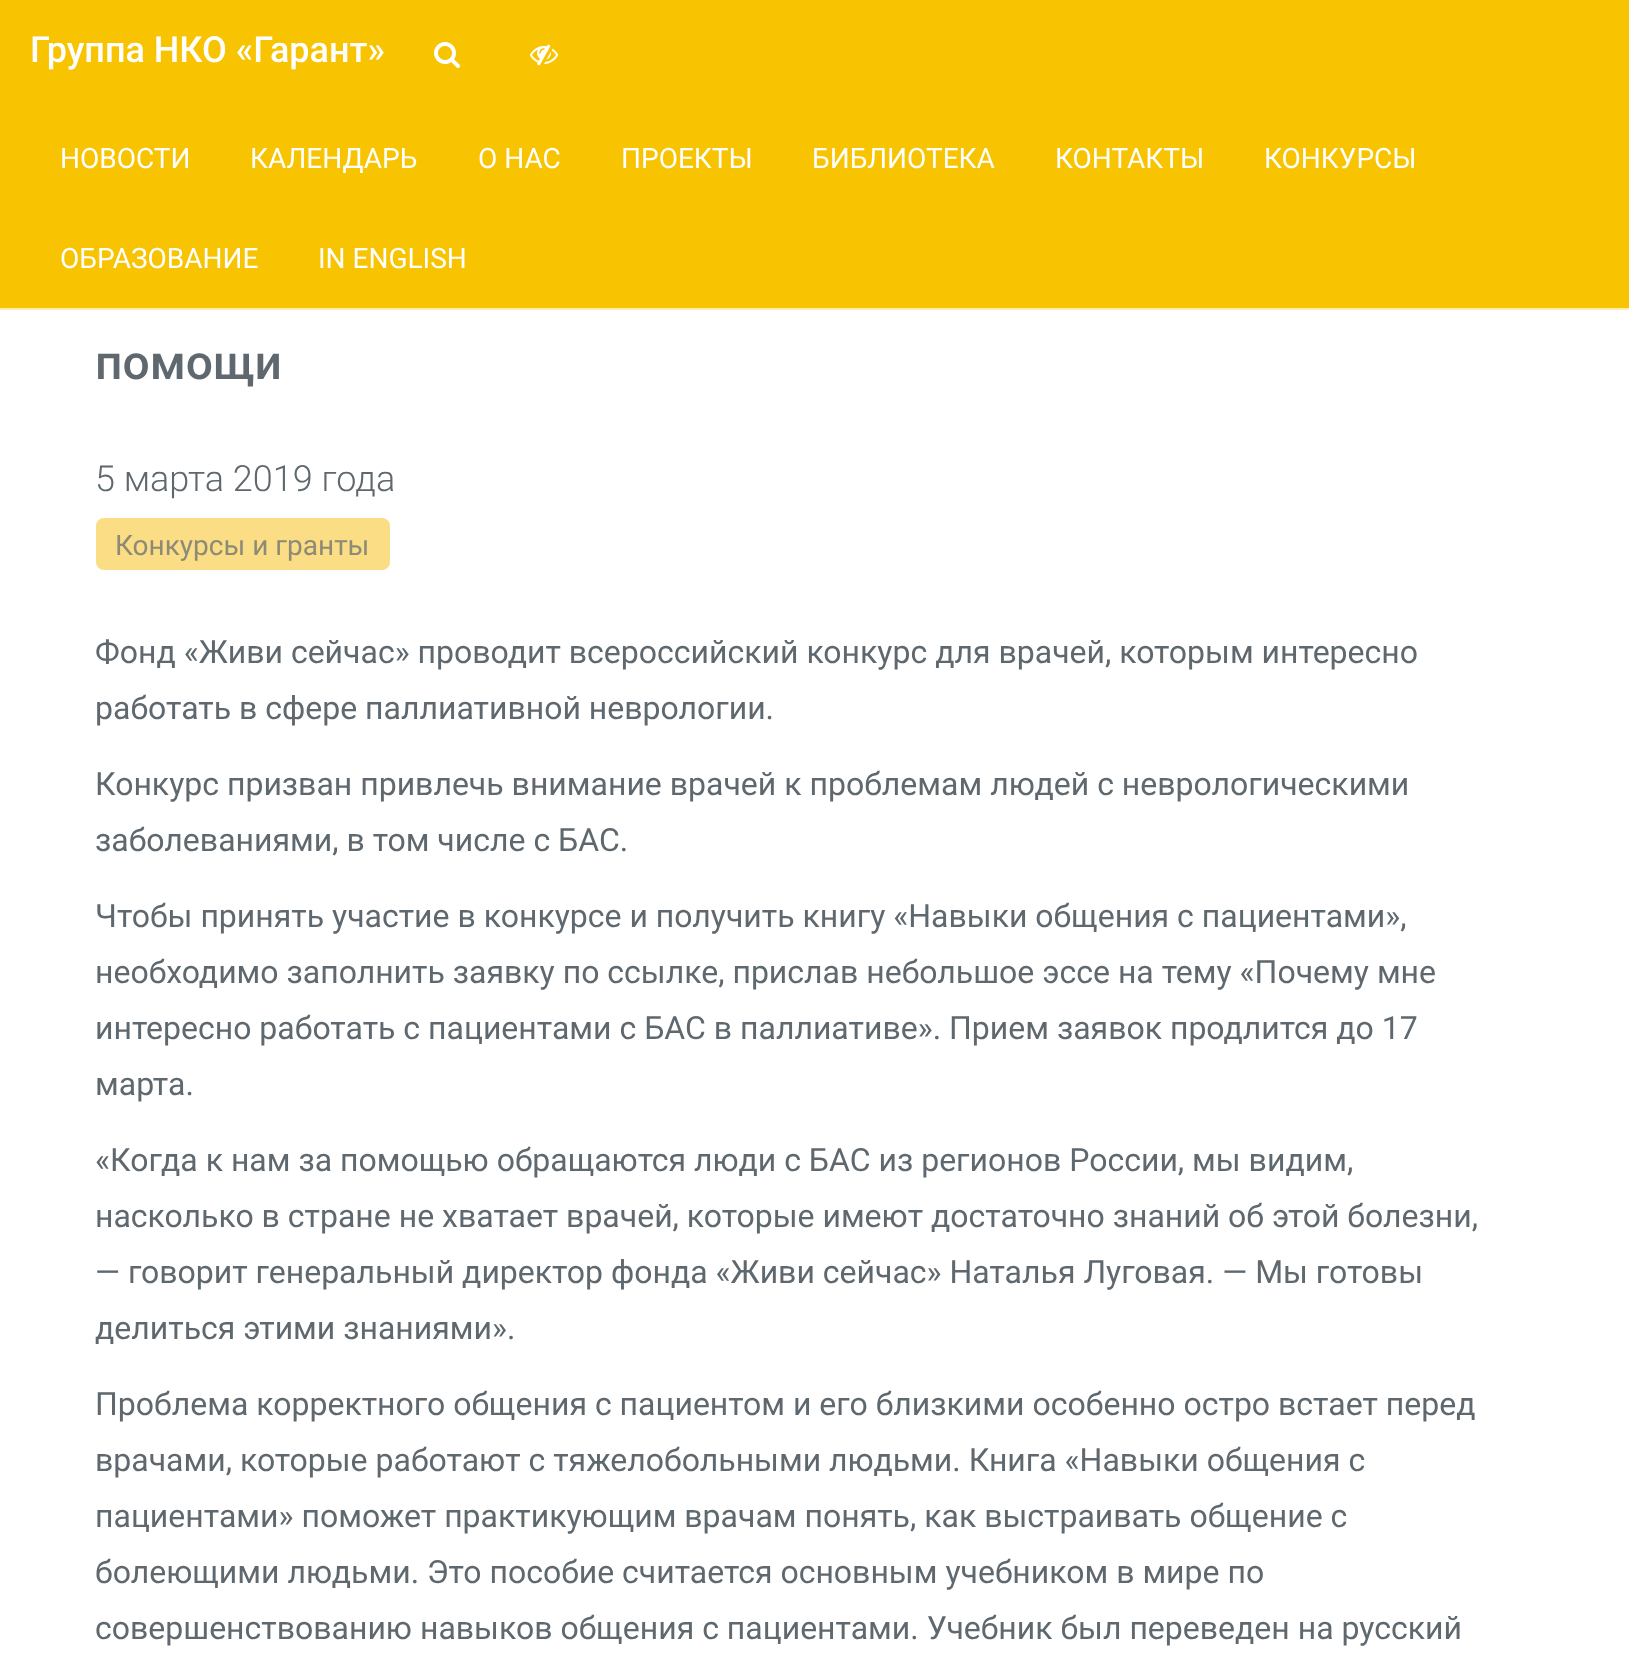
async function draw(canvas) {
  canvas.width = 1629
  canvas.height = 1668
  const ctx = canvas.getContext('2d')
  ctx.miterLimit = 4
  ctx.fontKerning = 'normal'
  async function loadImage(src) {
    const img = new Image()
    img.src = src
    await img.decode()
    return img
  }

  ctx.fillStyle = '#fff'
  ctx.fillRect(0, 0, 1629, 1668)
  ctx.fillStyle = '#f8c300'
  ctx.fillRect(0, 0, 1629, 308)
  ctx.fillStyle = '#fdedb3'
  ctx.fillRect(0, 308, 1629, 2)
  ctx.font = '500 36px Roboto'
  ctx.fillStyle = '#fff'
  ctx.fillText('Группа НКО «Гарант»', 30, 62)
  ctx.drawImage(await loadImage('image0.png'), 434, 42, 26, 26)
  ctx.drawImage(await loadImage('image1.png'), 530, 44, 28, 22)
  ctx.font = '28px Roboto'
  ctx.fillText('НОВОСТИ', 60, 168)
  ctx.fillText('КАЛЕНДАРЬ', 250, 168)
  ctx.fillText('О НАС', 478, 168)
  ctx.fillText('ПРОЕКТЫ', 621, 168)
  ctx.fillText('БИБЛИОТЕКА', 812, 168)
  ctx.fillText('КОНТАКТЫ', 1055, 168)
  ctx.fillText('КОНКУРСЫ', 1264, 168)
  ctx.fillText('ОБРАЗОВАНИЕ', 60, 268)
  ctx.fillText('IN ENGLISH', 318, 268)
  ctx.font = '500 48px Roboto'
  ctx.fillStyle = '#5e686e'
  ctx.fillText('помощи', 95, 379)
  ctx.font = '300 36px Roboto'
  ctx.fillText('5 марта 2019 года', 95, 491)
  ctx.fillStyle = '#fadd85'
  ctx.beginPath()
  ctx.roundRect(96, 518, 294, 52, 8)
  ctx.fill()
  ctx.font = '28px Roboto'
  ctx.fillStyle = '#8d8b75'
  ctx.fillText('Конкурсы и гранты', 115, 555)
  ctx.font = '32px Roboto'
  ctx.fillStyle = '#5e686e'
  ctx.fillText('Фонд «Живи сейчас» проводит всероссийский конкурс для врачей, которым интересно', 95, 663)
  ctx.fillText('работать в сфере паллиативной неврологии.', 95, 719)
  ctx.fillText('Конкурс призван привлечь внимание врачей к проблемам людей с неврологическими', 95, 795)
  ctx.fillText('заболеваниями, в том числе с БАС.', 95, 851)
  ctx.fillText('Чтобы принять участие в конкурсе и получить книгу «Навыки общения с пациентами»,', 95, 927)
  ctx.fillText('необходимо заполнить заявку по ссылке, прислав небольшое эссе на тему «Почему мне', 95, 983)
  ctx.fillText('интересно работать с пациентами с БАС в паллиативе». Прием заявок продлится до 17', 95, 1039)
  ctx.fillText('марта.', 95, 1095)
  ctx.fillText('«Когда к нам за помощью обращаются люди с БАС из регионов России, мы видим,', 95, 1171)
  ctx.fillText('насколько в стране не хватает врачей, которые имеют достаточно знаний об этой болезни,', 95, 1227)
  ctx.fillText('— говорит генеральный директор фонда «Живи сейчас» Наталья Луговая. — Мы готовы', 95, 1283)
  ctx.fillText('делиться этими знаниями».', 95, 1339)
  ctx.fillText('Проблема корректного общения с пациентом и его близкими особенно остро встает перед', 95, 1415)
  ctx.fillText('врачами, которые работают с тяжелобольными людьми. Книга «Навыки общения с', 95, 1471)
  ctx.fillText('пациентами» поможет практикующим врачам понять, как выстраивать общение с', 95, 1527)
  ctx.fillText('болеющими людьми. Это пособие считается основным учебником в мире по', 95, 1583)
  ctx.fillText('совершенствованию навыков общения с пациентами. Учебник был переведен на русский', 95, 1639)
}

draw(document.querySelector('canvas'))
